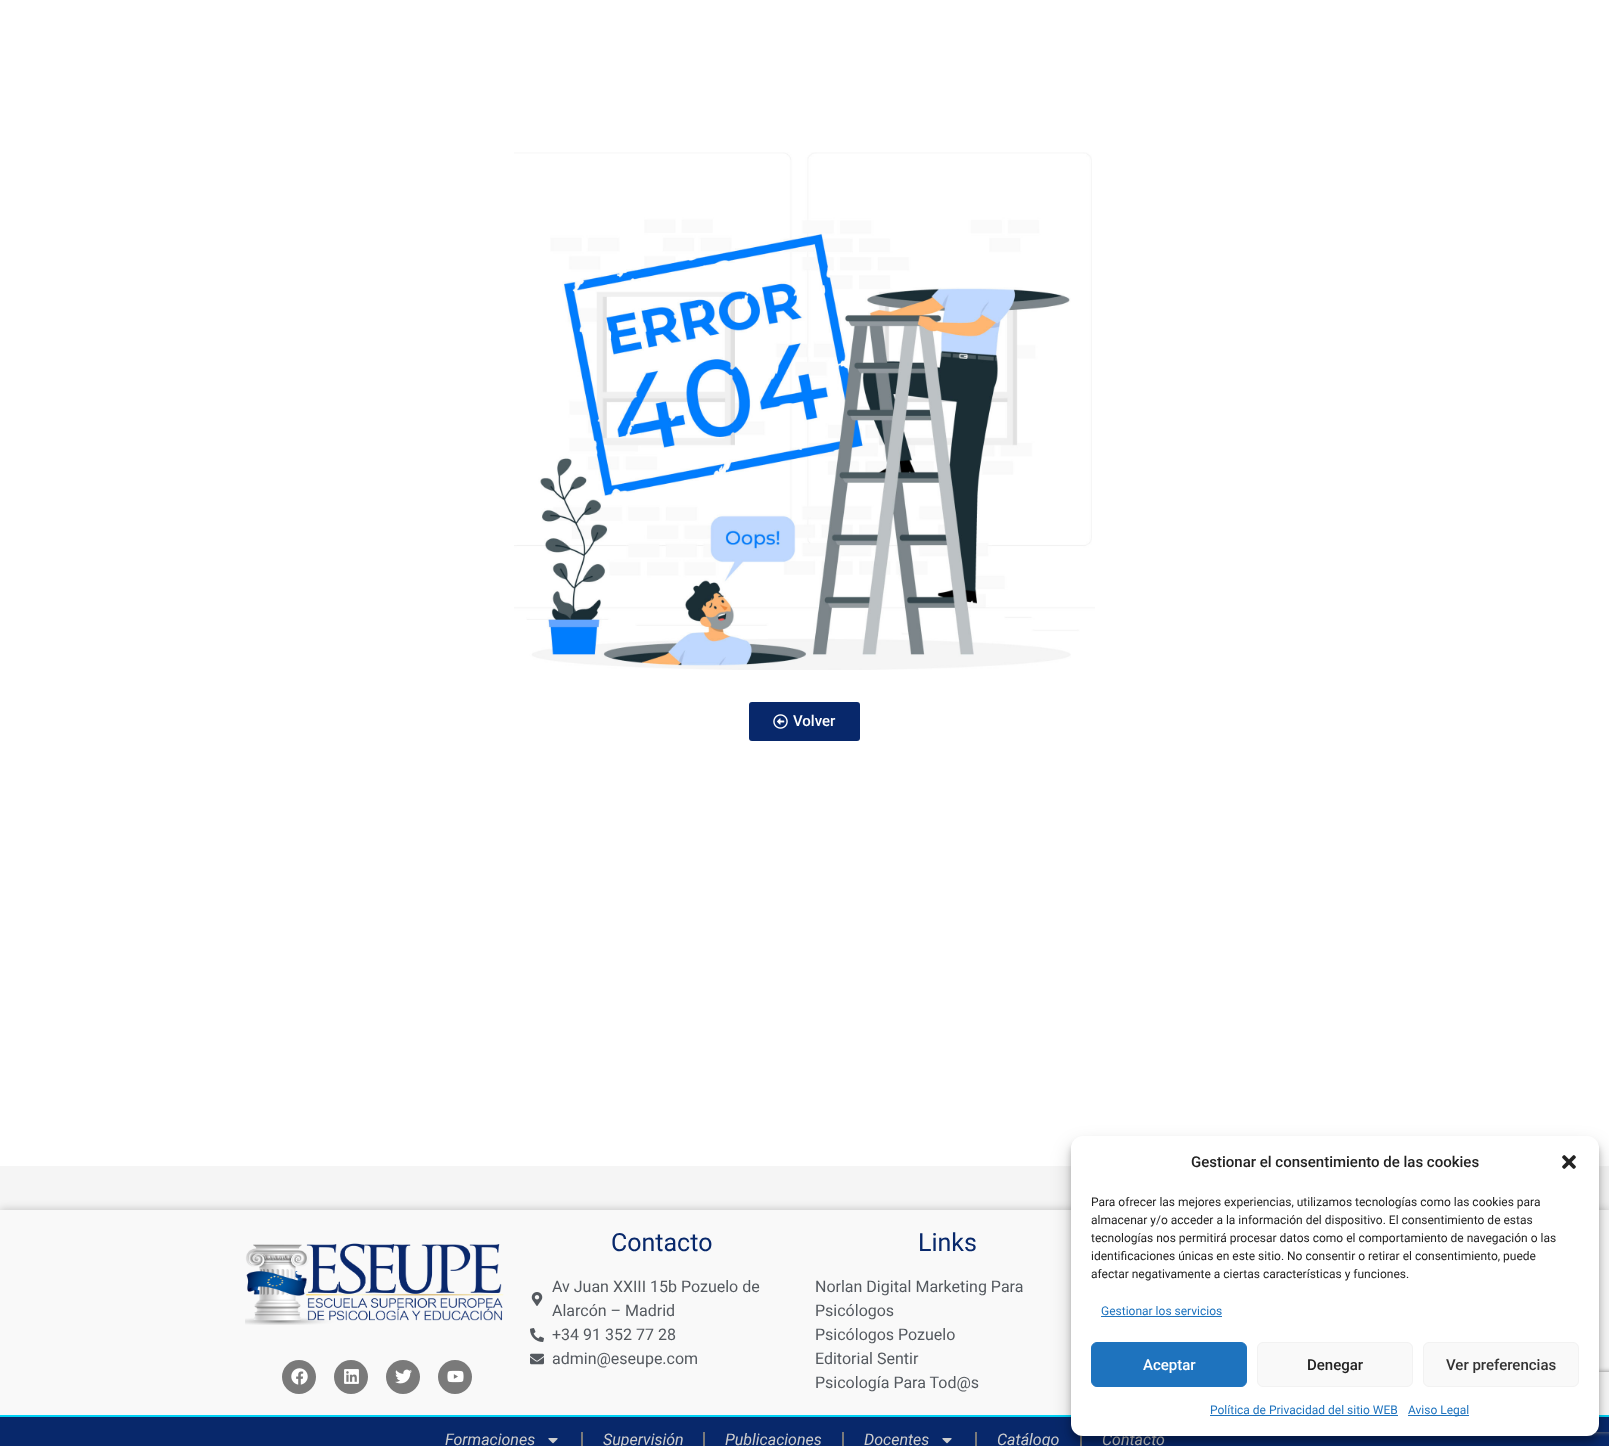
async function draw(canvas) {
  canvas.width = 1609
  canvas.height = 1446
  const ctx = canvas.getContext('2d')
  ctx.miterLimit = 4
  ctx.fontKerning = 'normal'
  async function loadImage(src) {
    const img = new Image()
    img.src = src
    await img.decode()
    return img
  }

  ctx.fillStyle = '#fff'
  ctx.fillRect(0, 0, 1609, 1446)
  ctx.drawImage(await loadImage('image0.png'), 514, 152, 581, 518)
  ctx.fillStyle = '#08286b'
  ctx.beginPath()
  ctx.roundRect(749, 702, 111, 39, 3)
  ctx.fill()
  ctx.drawImage(await loadImage('image1.png'), 773, 714, 15, 15)
  ctx.font = '500 15px Roboto'
  ctx.fillStyle = '#fff'
  ctx.fillText('Volver', 793, 726)
  ctx.fillStyle = '#f5f5f5'
  ctx.fillRect(0, 1166, 1609, 44)
  ctx.fillStyle = '#00000038'
  ctx.filter = 'blur(5px)'
  ctx.beginPath()
  ctx.rect(0, 1210, 1609, 205)
  ctx.fill()
  ctx.filter = 'none'
  ctx.fillStyle = '#f9f9f9'
  ctx.fillRect(0, 1210, 1609, 205)
  ctx.drawImage(await loadImage('image2.png'), 245, 1243, 259, 82)
  ctx.fillStyle = '#7a7a7a'
  ctx.beginPath()
  ctx.arc(299, 1377, 17, 0, 2 * Math.PI)
  ctx.fill()
  ctx.drawImage(await loadImage('image3.png'), 291, 1368, 17, 17)
  ctx.beginPath()
  ctx.arc(351, 1377, 17, 0, 2 * Math.PI)
  ctx.fill()
  ctx.drawImage(await loadImage('image4.png'), 344, 1369, 15, 15)
  ctx.beginPath()
  ctx.arc(403, 1377, 17, 0, 2 * Math.PI)
  ctx.fill()
  ctx.drawImage(await loadImage('image5.png'), 395, 1369, 17, 15)
  ctx.beginPath()
  ctx.arc(455, 1377, 17, 0, 2 * Math.PI)
  ctx.fill()
  ctx.drawImage(await loadImage('image6.png'), 447, 1370, 17, 13)
  ctx.font = '25px Roboto'
  ctx.fillStyle = '#08286b'
  ctx.fillText('Contacto', 611, 1251)
  ctx.drawImage(await loadImage('image7.png'), 531, 1292, 12, 14)
  ctx.font = '16px Roboto'
  ctx.fillStyle = '#54595f'
  ctx.fillText('Av Juan XXIII 15b Pozuelo de', 552, 1292)
  ctx.fillText('Alarcón – Madrid', 552, 1316)
  ctx.drawImage(await loadImage('image8.png'), 530, 1328, 14, 14)
  ctx.fillText('+34 91 352 77 28', 552, 1340)
  ctx.drawImage(await loadImage('image9.png'), 530, 1353, 14, 12)
  ctx.fillText('admin@eseupe.com', 552, 1364)
  ctx.font = '25px Roboto'
  ctx.fillStyle = '#08286b'
  ctx.fillText('Links', 918, 1251)
  ctx.font = '16px Roboto'
  ctx.fillStyle = '#54595f'
  ctx.fillText('Norlan Digital Marketing Para', 815, 1292)
  ctx.fillText('Psicólogos', 815, 1316)
  ctx.fillText('Psicólogos Pozuelo', 815, 1340)
  ctx.fillText('Editorial Sentir', 815, 1364)
  ctx.fillText('Psicología Para Tod@s', 815, 1388)
  ctx.fillStyle = '#08286b'
  ctx.fillRect(0, 1417, 1609, 29)
  ctx.fillStyle = '#00d3f6'
  ctx.fillRect(0, 1415, 1609, 2)
  ctx.font = 'italic 16px Roboto'
  ctx.fillStyle = '#cecece'
  ctx.fillText('Formaciones', 445, 1445)
  ctx.drawImage(await loadImage('image10.png'), 548, 1438, 10, 6)
  ctx.fillStyle = '#7a7a7a'
  ctx.fillRect(581, 1432, 2, 14)
  ctx.fillStyle = '#cecece'
  ctx.fillText('Supervisión', 603, 1445)
  ctx.fillStyle = '#7a7a7a'
  ctx.fillRect(703, 1432, 2, 14)
  ctx.fillStyle = '#cecece'
  ctx.fillText('Publicaciones', 725, 1445)
  ctx.fillStyle = '#7a7a7a'
  ctx.fillRect(842, 1432, 2, 14)
  ctx.fillStyle = '#cecece'
  ctx.fillText('Docentes', 864, 1445)
  ctx.drawImage(await loadImage('image10.png'), 942, 1438, 10, 6)
  ctx.fillStyle = '#7a7a7a'
  ctx.fillRect(975, 1432, 2, 14)
  ctx.fillStyle = '#cecece'
  ctx.fillText('Catálogo', 997, 1445)
  ctx.fillStyle = '#7a7a7a'
  ctx.fillRect(1080, 1432, 2, 14)
  ctx.fillStyle = '#cecece'
  ctx.fillText('Contacto', 1102, 1445)
  ctx.fillStyle = '#0000003b'
  ctx.filter = 'blur(3px)'
  ctx.beginPath()
  ctx.roundRect(1071, 1142, 528, 300, 12)
  ctx.fill()
  ctx.filter = 'none'
  ctx.fillStyle = '#00000030'
  ctx.filter = 'blur(10px)'
  ctx.beginPath()
  ctx.roundRect(1071, 1146, 528, 300, 12)
  ctx.fill()
  ctx.filter = 'none'
  ctx.save()
  ctx.beginPath()
  ctx.moveTo(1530, 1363)
  ctx.lineTo(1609, 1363)
  ctx.lineTo(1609, 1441)
  ctx.lineTo(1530, 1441)
  ctx.closePath()
  ctx.moveTo(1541, 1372)
  ctx.lineTo(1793, 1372)
  ctx.bezierCurveTo(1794, 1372, 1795, 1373, 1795, 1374)
  ctx.lineTo(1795, 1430)
  ctx.bezierCurveTo(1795, 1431, 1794, 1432, 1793, 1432)
  ctx.lineTo(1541, 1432)
  ctx.bezierCurveTo(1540, 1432, 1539, 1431, 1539, 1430)
  ctx.lineTo(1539, 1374)
  ctx.bezierCurveTo(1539, 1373, 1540, 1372, 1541, 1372)
  ctx.closePath()
  ctx.clip('evenodd')
  ctx.fillStyle = '#808080'
  ctx.filter = 'blur(2.5px)'
  ctx.beginPath()
  ctx.roundRect(1539, 1372, 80, 60, 2)
  ctx.fill()
  ctx.filter = 'none'
  ctx.restore()
  ctx.fillStyle = '#fff'
  ctx.beginPath()
  ctx.roundRect(1071, 1136, 528, 300, 12)
  ctx.fill()
  ctx.font = '500 15px Roboto'
  ctx.fillStyle = '#222'
  ctx.fillText('Gestionar el consentimiento de las cookies', 1191, 1167)
  ctx.drawImage(await loadImage('image11.png'), 1562, 1155, 14, 14)
  ctx.font = '12px Roboto'
  ctx.fillText('Para ofrecer las mejores experiencias, utilizamos tecnologías como las cookies para', 1091, 1206)
  ctx.fillText('almacenar y/o acceder a la información del dispositivo. El consentimiento de estas', 1091, 1224)
  ctx.fillText('tecnologías nos permitirá procesar datos como el comportamiento de navegación o las', 1091, 1242)
  ctx.fillText('identificaciones únicas en este sitio. No consentir o retirar el consentimiento, puede', 1091, 1260)
  ctx.fillText('afectar negativamente a ciertas características y funciones.', 1091, 1278)
  ctx.fillStyle = '#1e73be'
  ctx.fillText('Gestionar los servicios', 1101, 1315)
  ctx.fillRect(1101, 1316, 121, 1)
  ctx.beginPath()
  ctx.roundRect(1091.5, 1342.5, 155, 44, 5.5)
  ctx.fill()
  ctx.strokeStyle = '#1e73be'
  ctx.stroke()
  ctx.font = '500 15px Roboto'
  ctx.fillStyle = '#fff'
  ctx.fillText('Aceptar', 1143, 1370)
  ctx.fillStyle = '#f9f9f9'
  ctx.beginPath()
  ctx.roundRect(1257.5, 1342.5, 155, 44, 5.5)
  ctx.fill()
  ctx.strokeStyle = '#f2f2f2'
  ctx.stroke()
  ctx.fillStyle = '#222'
  ctx.fillText('Denegar', 1307, 1370)
  ctx.fillStyle = '#f9f9f9'
  ctx.beginPath()
  ctx.roundRect(1423.5, 1342.5, 155, 44, 5.5)
  ctx.fill()
  ctx.stroke()
  ctx.fillStyle = '#333'
  ctx.fillText('Ver preferencias', 1446, 1370)
  ctx.font = '12px Roboto'
  ctx.fillStyle = '#1e73be'
  ctx.fillText('Política de Privacidad del sitio WEB', 1210, 1414)
  ctx.fillRect(1210, 1415, 188, 1)
  ctx.fillRect(1408, 1415, 61, 1)
  ctx.fillText('Aviso Legal', 1408, 1414)
}

draw(document.querySelector('canvas'))
